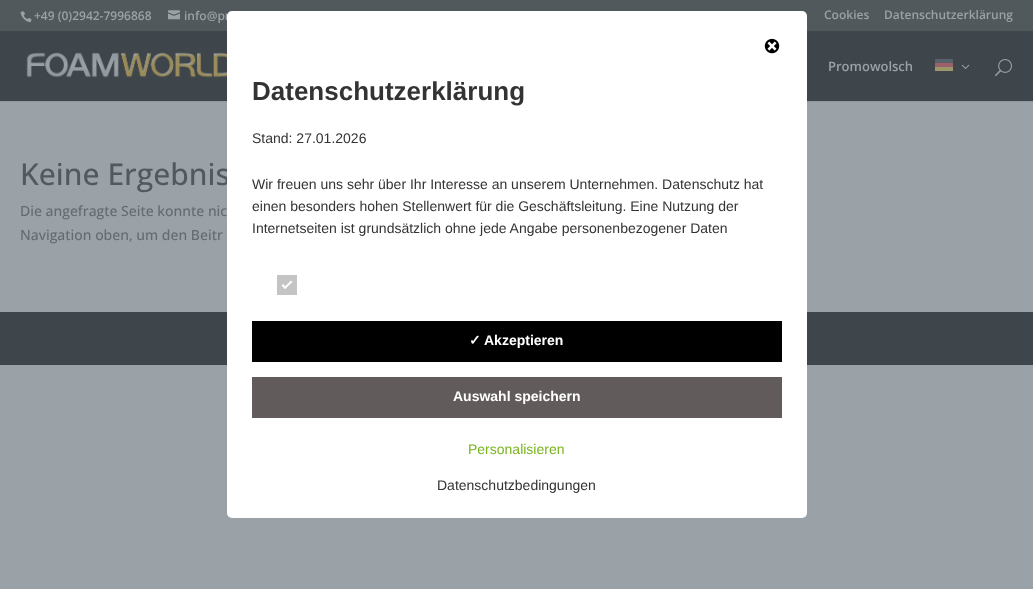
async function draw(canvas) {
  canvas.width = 1033
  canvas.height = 589
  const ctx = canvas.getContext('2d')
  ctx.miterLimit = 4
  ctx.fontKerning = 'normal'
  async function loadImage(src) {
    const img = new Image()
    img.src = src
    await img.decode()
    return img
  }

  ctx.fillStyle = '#9ba2a7'
  ctx.fillRect(0, 0, 1033, 589)
  ctx.fillStyle = '#92999e'
  ctx.fillRect(0, 101, 1033, 1)
  ctx.fillStyle = '#51595d'
  ctx.fillRect(0, 0, 1033, 31)
  ctx.drawImage(await loadImage('image0.png'), 20, 11, 12, 12)
  ctx.font = '600 12px Open Sans'
  ctx.fillStyle = '#9ba2a7'
  ctx.fillText('+49 (0)2942-7996868', 34, 20)
  ctx.drawImage(await loadImage('image1.png'), 168, 10, 12, 10)
  ctx.fillText('info@pr', 184, 20)
  ctx.fillText('Cookies', 824, 19)
  ctx.fillText('Datenschutzerklärung', 884, 19)
  ctx.fillStyle = '#3f464b'
  ctx.fillRect(0, 31, 1033, 70)
  ctx.drawImage(await loadImage('image2.png'), 26, 52, 201, 26)
  ctx.font = '600 13px Open Sans'
  ctx.fillStyle = '#9ba2a7'
  ctx.fillText('Promowolsch', 828, 71)
  ctx.fillStyle = '#586069'
  ctx.fillRect(935, 59, 18, 4)
  ctx.fillStyle = '#9b6169'
  ctx.fillRect(935, 63, 18, 4)
  ctx.drawImage(await loadImage('image3.png'), 961, 64, 9, 5)
  ctx.fillStyle = '#9b976b'
  ctx.fillRect(935, 67, 18, 4)
  ctx.drawImage(await loadImage('image4.png'), 995, 59, 17, 18)
  ctx.font = '500 30px Open Sans'
  ctx.fillStyle = '#51595d'
  ctx.fillText('Keine Ergebnis', 20, 185)
  ctx.font = '500 14px Open Sans'
  ctx.fillStyle = '#636b70'
  ctx.fillText('Die angefragte Seite konnte nic', 20, 216)
  ctx.fillText('Navigation oben, um den Beitr', 20, 240)
  ctx.fillStyle = '#3f464b'
  ctx.fillRect(0, 312, 1033, 53)
  ctx.fillStyle = '#fff'
  ctx.beginPath()
  ctx.roundRect(227, 11, 580, 507, 5)
  ctx.fill()
  ctx.drawImage(await loadImage('image5.png'), 764, 38, 16, 16)
  ctx.font = 'bold 26px Liberation Sans'
  ctx.fillStyle = '#333'
  ctx.fillText('Datenschutzerklärung', 252, 100)
  ctx.font = '14px Liberation Sans'
  ctx.fillText('Stand: 27.01.2026', 252, 143)
  ctx.fillText('Wir freuen uns sehr über Ihr Interesse an unserem Unternehmen. Datenschutz hat', 252, 189)
  ctx.fillText('einen besonders hohen Stellenwert für die Geschäftsleitung. Eine Nutzung der', 252, 211)
  ctx.fillText('Internetseiten ist grundsätzlich ohne jede Angabe personenbezogener Daten', 252, 233)
  ctx.fillStyle = '#c4c4c4'
  ctx.fillRect(277, 275, 20, 20)
  ctx.fillStyle = '#fff'
  ctx.beginPath()
  ctx.moveTo(291, 280.5)
  ctx.lineTo(292.5, 282)
  ctx.lineTo(285, 289)
  ctx.lineTo(284, 287.5)
  ctx.closePath()
  ctx.fill()
  ctx.beginPath()
  ctx.moveTo(283, 284)
  ctx.lineTo(286.5, 287.5)
  ctx.lineTo(285, 289)
  ctx.lineTo(281.5, 285.5)
  ctx.closePath()
  ctx.fill()
  ctx.fillStyle = '#000'
  ctx.fillRect(252, 321, 530, 41)
  ctx.font = 'bold 14px DejaVu Sans'
  ctx.fillStyle = '#fff'
  ctx.fillText('✓', 469, 345)
  ctx.font = 'bold 14px Liberation Sans'
  ctx.fillText('Akzeptieren', 484, 345)
  ctx.fillStyle = '#615b5b'
  ctx.fillRect(252, 377, 530, 41)
  ctx.fillStyle = '#fff'
  ctx.fillText('Auswahl speichern', 453, 401)
  ctx.font = '14px Liberation Sans'
  ctx.fillStyle = '#79b51f'
  ctx.fillText('Personalisieren', 468, 454)
  ctx.fillStyle = '#333'
  ctx.fillText('Datenschutzbedingungen', 437, 490)
}

draw(document.querySelector('canvas'))
